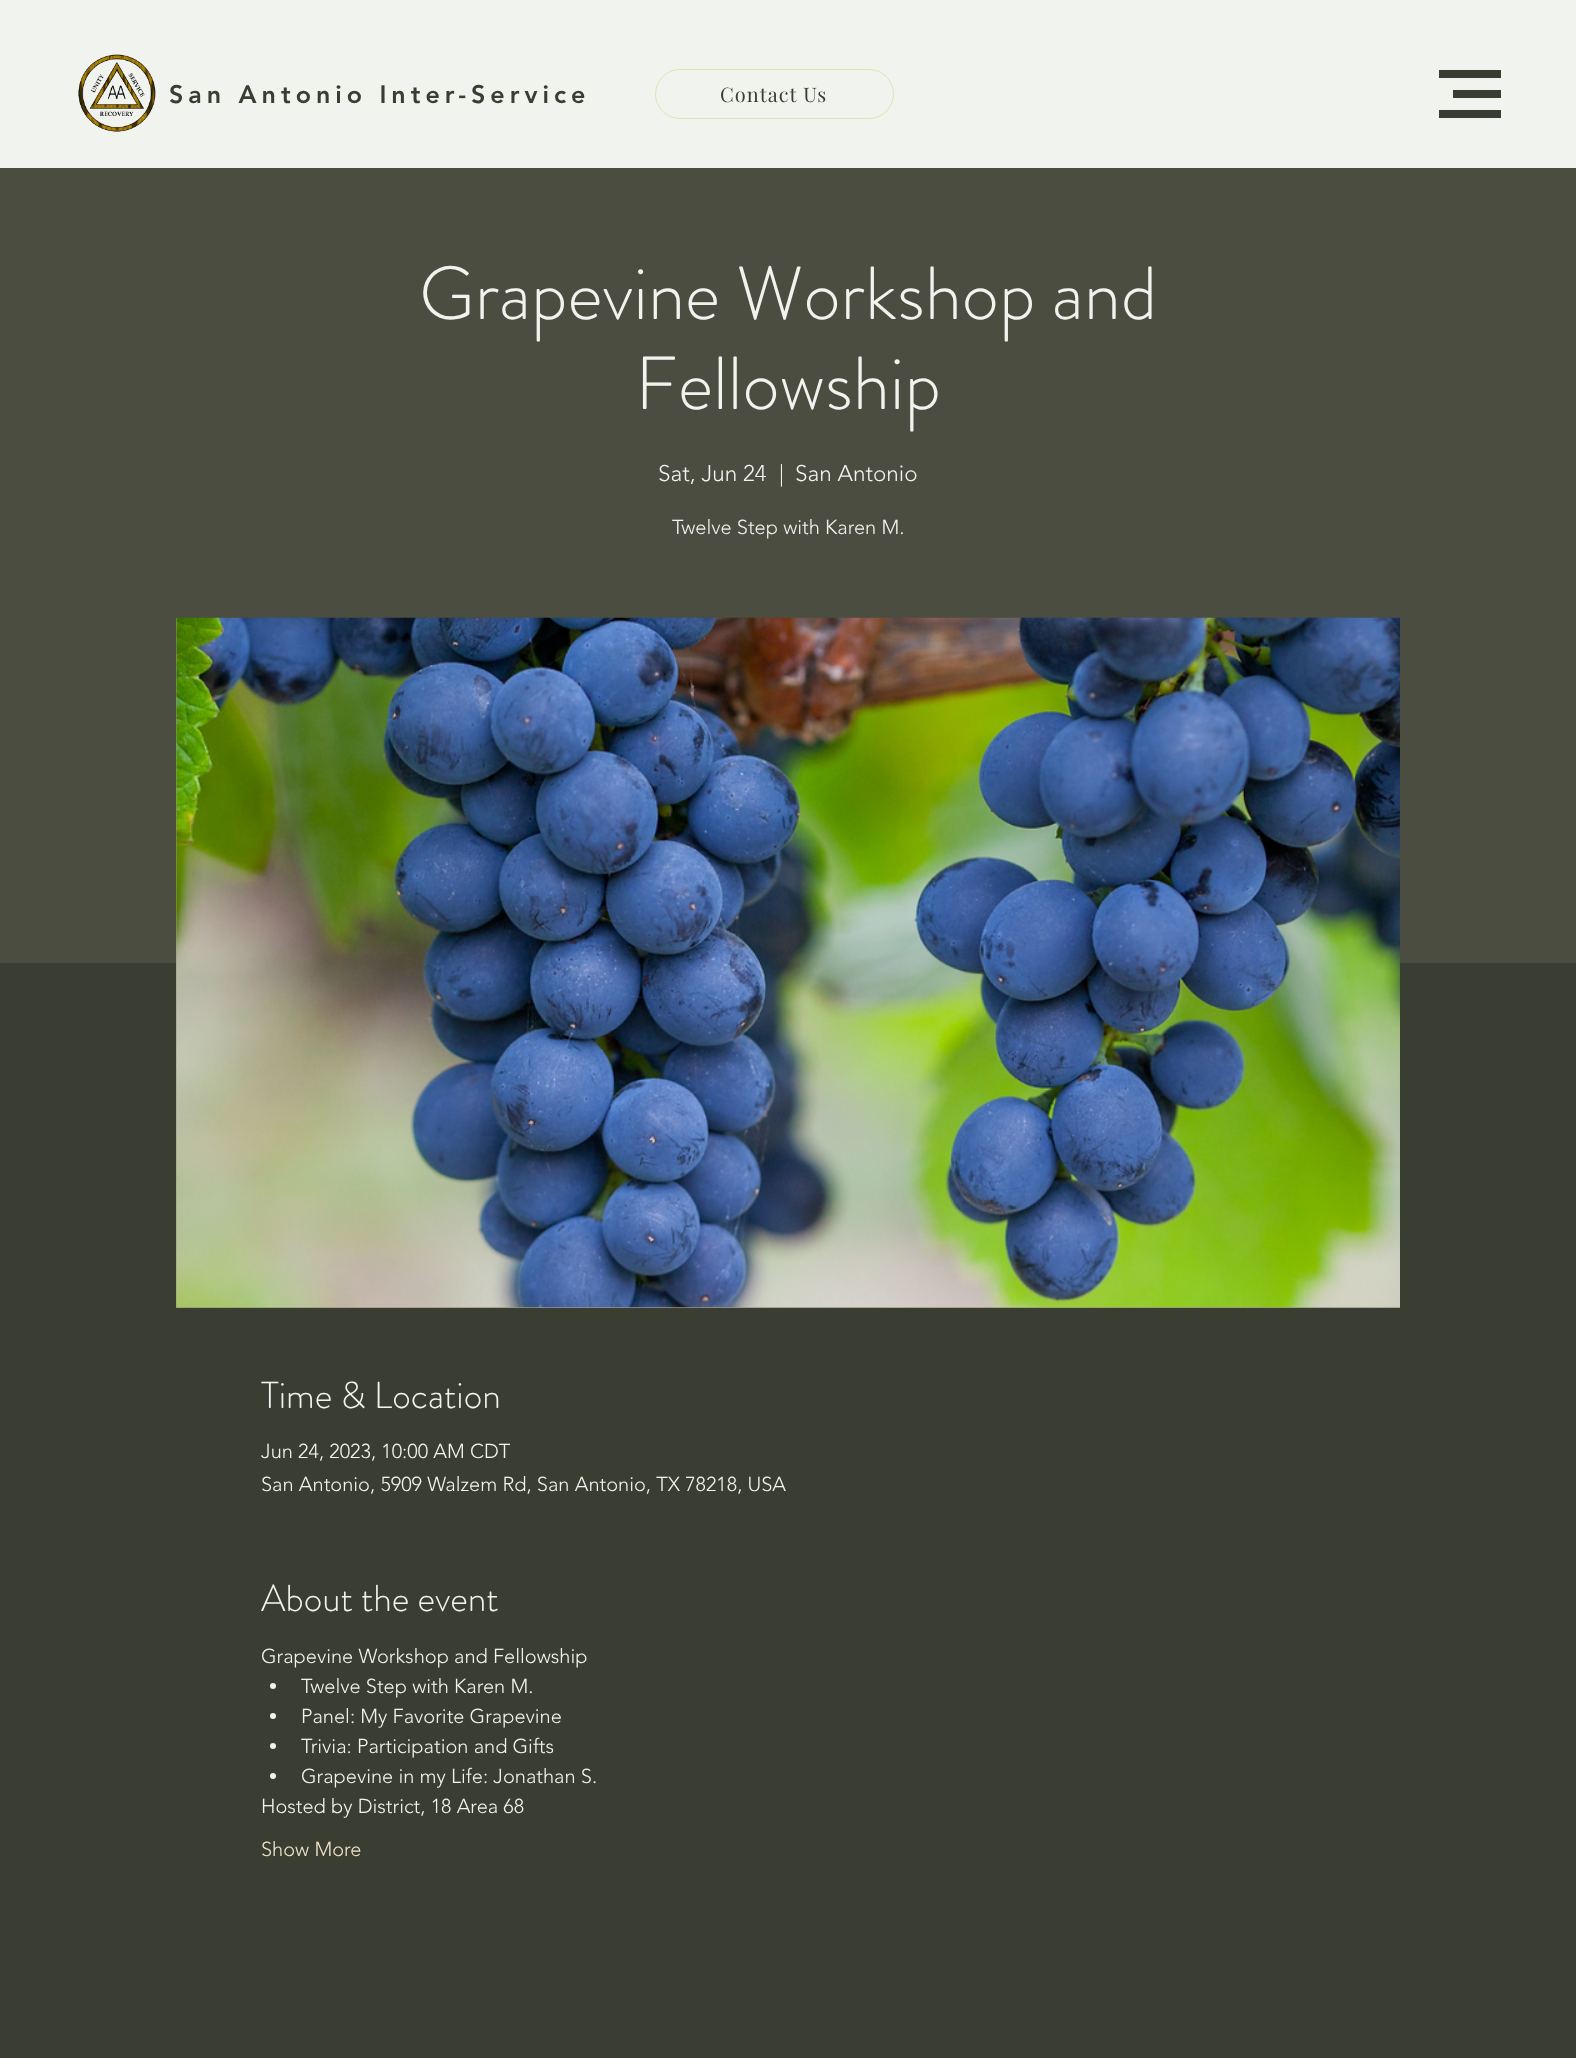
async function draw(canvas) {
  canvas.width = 1576
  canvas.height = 2058
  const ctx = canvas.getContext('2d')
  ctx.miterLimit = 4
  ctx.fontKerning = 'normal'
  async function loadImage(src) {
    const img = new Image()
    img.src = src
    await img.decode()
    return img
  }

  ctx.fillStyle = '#393d32'
  ctx.fillRect(0, 0, 1576, 2058)
  ctx.fillStyle = '#f1f3ee'
  ctx.fillRect(0, 0, 1576, 168)
  ctx.drawImage(await loadImage('image0.png'), 78, 54, 78, 78)
  ctx.letterSpacing = '5px'
  ctx.font = '900 25px "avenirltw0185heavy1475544"'
  ctx.fillStyle = '#393d32'
  ctx.fillText('San Antonio Inter-Service', 169, 103)
  ctx.fillRect(1439, 110, 62, 8)
  ctx.fillRect(1439, 70, 62, 8)
  ctx.fillRect(1453, 90, 48, 8)
  ctx.beginPath()
  ctx.roundRect(655.5, 69.5, 238, 49, 24.5)
  ctx.strokeStyle = '#dde6b5'
  ctx.stroke()
  ctx.letterSpacing = '1px'
  ctx.font = '20px Playfair Display'
  ctx.fillText('Contact Us', 720, 102)
  ctx.fillStyle = '#4b4d40'
  ctx.fillRect(0, 168, 1576, 795)
  ctx.letterSpacing = '0px'
  ctx.font = '300 75px "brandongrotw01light"'
  ctx.fillStyle = '#f1f3ee'
  ctx.fillText('Grapevine Workshop and', 419, 319)
  ctx.fillText('Fellowship', 635, 409)
  ctx.font = '300 22.5px "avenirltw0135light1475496"'
  ctx.fillText('Sat, Jun 24', 658, 481)
  ctx.fillText('|', 779, 481)
  ctx.fillText('San Antonio', 795, 481)
  ctx.font = '300 20px "avenirltw0135light1475496"'
  ctx.fillText('Twelve Step with Karen M.', 672, 534)
  ctx.fillStyle = '#9e9683'
  ctx.fillRect(176, 618, 1224, 690)
  ctx.drawImage(await loadImage('image1.png'), 176, 617, 1224, 691)
  ctx.font = '300 37.5px "brandongrotw01light"'
  ctx.fillStyle = '#f1f3ee'
  ctx.fillText('Time & Location', 261, 1408)
  ctx.font = '300 20px "avenirltw0135light1475496"'
  ctx.fillText('Jun 24, 2023, 10:00 AM CDT', 261, 1458)
  ctx.fillText('San Antonio, 5909 Walzem Rd, San Antonio, TX 78218, USA', 261, 1491)
  ctx.font = '300 37.5px "brandongrotw01light"'
  ctx.fillText('About the event', 261, 1611)
  ctx.font = '300 20px "avenirltw0135light1475496"'
  ctx.fillText('Grapevine Workshop and Fellowship', 261, 1663)
  ctx.beginPath()
  ctx.arc(273, 1686, 3, 0, 2 * Math.PI)
  ctx.fill()
  ctx.fillText('Twelve Step with Karen M.', 301, 1693)
  ctx.beginPath()
  ctx.arc(273, 1716, 3, 0, 2 * Math.PI)
  ctx.fill()
  ctx.fillText('Panel: My Favorite Grapevine', 301, 1723)
  ctx.beginPath()
  ctx.arc(273, 1746, 3, 0, 2 * Math.PI)
  ctx.fill()
  ctx.fillText('Trivia: Participation and Gifts', 301, 1753)
  ctx.beginPath()
  ctx.arc(273, 1776, 3, 0, 2 * Math.PI)
  ctx.fill()
  ctx.fillText('Grapevine in my Life: Jonathan S.', 301, 1783)
  ctx.fillText('Hosted by District, 18 Area 68', 261, 1813)
  ctx.fillStyle = '#f1e3c8'
  ctx.fillText('Show More', 261, 1856)
}

draw(document.querySelector('canvas'))
